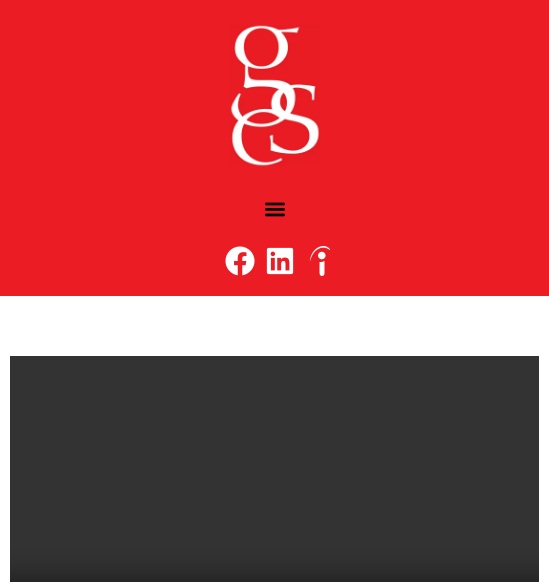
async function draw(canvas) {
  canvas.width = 549
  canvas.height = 582
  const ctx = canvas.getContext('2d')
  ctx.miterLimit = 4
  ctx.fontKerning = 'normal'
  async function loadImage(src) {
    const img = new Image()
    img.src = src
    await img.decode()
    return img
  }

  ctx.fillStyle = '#fff'
  ctx.fillRect(0, 0, 549, 582)
  ctx.fillStyle = '#eb1c24'
  ctx.fillRect(0, 0, 549, 296)
  ctx.drawImage(await loadImage('image0.png'), 230, 25, 90, 141)
  ctx.drawImage(await loadImage('image1.png'), 264, 202, 22, 15)
  ctx.drawImage(await loadImage('image2.png'), 225, 246, 30, 30)
  ctx.drawImage(await loadImage('image3.png'), 266, 247, 28, 28)
  ctx.drawImage(await loadImage('image4.png'), 309, 246, 21, 30)
  ctx.drawImage(await loadImage('image5.png'), 10, 356, 529, 226)
}

draw(document.querySelector('canvas'))
